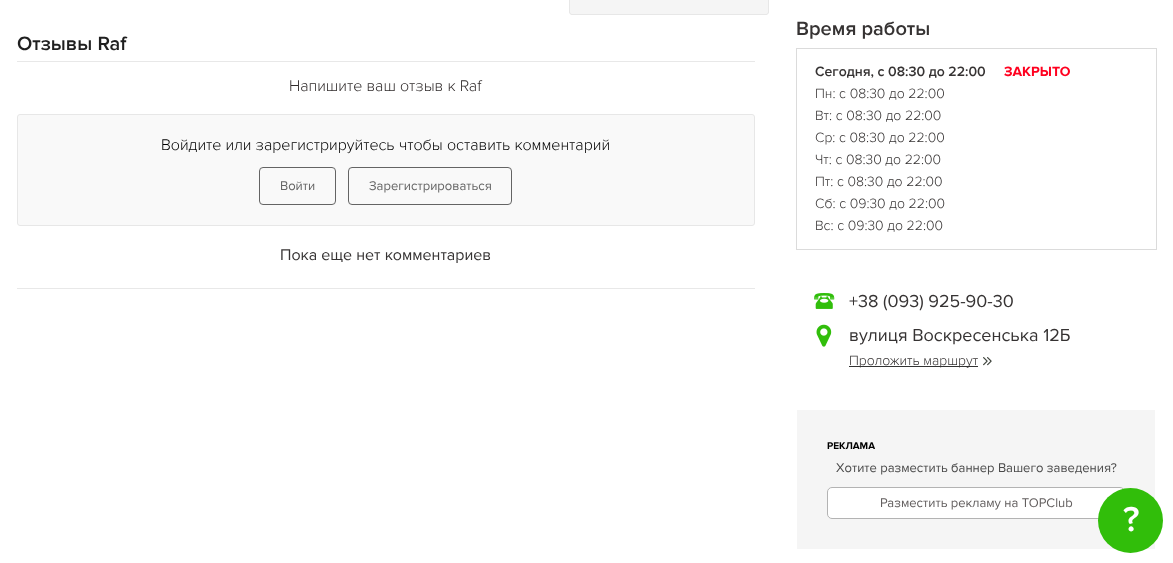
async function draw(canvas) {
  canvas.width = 1173
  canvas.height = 563
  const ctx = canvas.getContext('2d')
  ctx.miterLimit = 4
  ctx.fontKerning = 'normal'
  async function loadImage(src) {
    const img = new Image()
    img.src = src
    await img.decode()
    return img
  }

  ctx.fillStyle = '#fff'
  ctx.fillRect(0, 0, 1173, 563)
  ctx.fillStyle = '#f5f5f5'
  ctx.beginPath()
  ctx.moveTo(569.5, -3.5)
  ctx.lineTo(768.5, -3.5)
  ctx.lineTo(768.5, 12)
  ctx.bezierCurveTo(768.5, 13.5, 767.5, 14.5, 766, 14.5)
  ctx.lineTo(572, 14.5)
  ctx.bezierCurveTo(570.5, 14.5, 569.5, 13.5, 569.5, 12)
  ctx.closePath()
  ctx.fill()
  ctx.strokeStyle = '#e7e7e7'
  ctx.stroke()
  ctx.fillStyle = '#e8e8e8'
  ctx.fillRect(17, 61, 738, 1)
  ctx.font = '600 20px Proxima Nova'
  ctx.fillStyle = '#1f1f1f'
  ctx.fillText('Отзывы Raf', 17, 50)
  ctx.font = '300 16px Proxima Nova'
  ctx.fillStyle = '#312c2c'
  ctx.fillText('Напишите ваш отзыв к Raf', 289, 91)
  ctx.fillStyle = '#f9f9f9'
  ctx.beginPath()
  ctx.roundRect(17.5, 114.5, 737, 111, 2.5)
  ctx.fill()
  ctx.stroke()
  ctx.fillStyle = '#000'
  ctx.fillText('Войдите или зарегистрируйтесь чтобы оставить комментарий', 161, 150)
  ctx.beginPath()
  ctx.roundRect(259.5, 167.5, 76, 37, 3.5)
  ctx.strokeStyle = '#646464'
  ctx.stroke()
  ctx.font = '13px Proxima Nova'
  ctx.fillStyle = '#656565'
  ctx.fillText('Войти', 280, 190)
  ctx.beginPath()
  ctx.roundRect(348.5, 167.5, 163, 37, 3.5)
  ctx.stroke()
  ctx.fillText('Зарегистрироваться', 369, 190)
  ctx.fillStyle = '#e8e8e8'
  ctx.fillRect(17, 288, 738, 1)
  ctx.font = '16px Proxima Nova'
  ctx.fillStyle = '#363333'
  ctx.fillText('Пока еще нет комментариев', 280, 260)
  ctx.font = '600 20px Proxima Nova'
  ctx.fillText('Время работы', 796, 35)
  ctx.strokeStyle = '#dbdbdb'
  ctx.strokeRect(796.5, 48.5, 360, 201)
  ctx.font = '600 14px Proxima Nova'
  ctx.fillText('Сегодня, с 08:30 до 22:00', 815, 76)
  ctx.font = 'bold 14px Proxima Nova'
  ctx.fillStyle = '#ff001f'
  ctx.fillText('ЗАКРЫТО', 1004, 76)
  ctx.font = '300 14px Proxima Nova'
  ctx.fillStyle = '#363333'
  ctx.fillText('Пн: с 08:30 до 22:00', 815, 98)
  ctx.fillText('Вт: с 08:30 до 22:00', 815, 120)
  ctx.fillText('Ср: с 08:30 до 22:00', 815, 142)
  ctx.fillText('Чт: с 08:30 до 22:00', 815, 164)
  ctx.fillText('Пт: с 08:30 до 22:00', 815, 186)
  ctx.fillText('Сб: с 09:30 до 22:00', 815, 208)
  ctx.fillText('Вс: с 09:30 до 22:00', 815, 230)
  ctx.drawImage(await loadImage('image0.png'), 814, 293, 21, 16)
  ctx.font = '18px Proxima Nova'
  ctx.fillText('+38 (093) 925-90-30', 849, 307)
  ctx.drawImage(await loadImage('image1.png'), 816, 324, 16, 23)
  ctx.fillText('вулиця Воскресенська 12Б', 849, 341)
  ctx.fillStyle = '#333'
  ctx.fillRect(849, 366, 129, 1)
  ctx.font = '300 14px Proxima Nova'
  ctx.fillStyle = '#363333'
  ctx.fillText('Проложить маршрут', 849, 365)
  ctx.drawImage(await loadImage('image2.png'), 983, 357, 9, 9)
  ctx.fillStyle = '#f5f5f5'
  ctx.fillRect(797, 410, 358, 139)
  ctx.font = 'bold 10px Proxima Nova'
  ctx.fillStyle = '#000'
  ctx.fillText('РЕКЛАМА', 827, 449)
  ctx.font = '13px Proxima Nova'
  ctx.fillStyle = '#4a4a4a'
  ctx.fillText('Хотите разместить баннер Вашего заведения?', 836, 472)
  ctx.fillStyle = '#fff'
  ctx.beginPath()
  ctx.roundRect(827.5, 487.5, 297, 31, 4.5)
  ctx.fill()
  ctx.strokeStyle = '#b3b3b3'
  ctx.stroke()
  ctx.fillStyle = '#625e5e'
  ctx.fillText('Разместить рекламу на TOPClub', 880, 507)
  ctx.fillStyle = '#31be0a'
  ctx.beginPath()
  ctx.arc(1130.5, 520.5, 32.5, 0, 2 * Math.PI)
  ctx.fill()
  ctx.font = '600 36px Proxima Nova'
  ctx.fillStyle = '#fff'
  ctx.fillText('?', 1123, 531)
}

draw(document.querySelector('canvas'))
